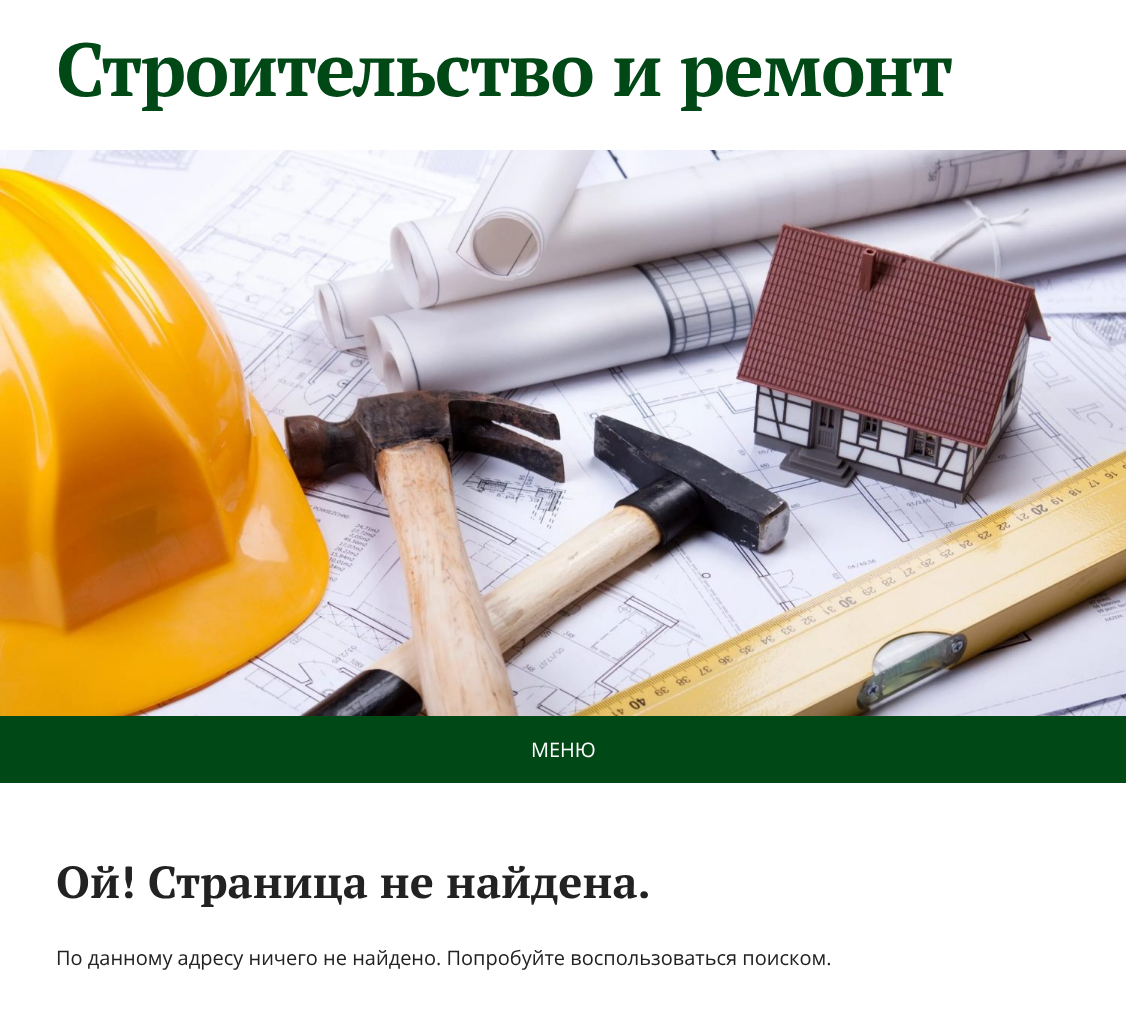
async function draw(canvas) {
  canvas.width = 1126
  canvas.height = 1019
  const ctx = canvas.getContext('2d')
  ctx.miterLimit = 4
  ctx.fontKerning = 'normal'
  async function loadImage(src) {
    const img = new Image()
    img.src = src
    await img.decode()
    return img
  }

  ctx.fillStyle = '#fff'
  ctx.fillRect(0, 0, 1126, 1019)
  ctx.letterSpacing = '-1.5px'
  ctx.font = 'bold 75px PT Serif'
  ctx.fillStyle = '#004916'
  ctx.fillText('Строительство и ремонт', 56, 96)
  ctx.drawImage(await loadImage('image0.png'), 0, 150, 1126, 566)
  ctx.fillRect(0, 716, 1126, 67)
  ctx.letterSpacing = '0px'
  ctx.font = '20px Open Sans'
  ctx.fillStyle = '#fff'
  ctx.fillText('МЕНЮ', 531, 757)
  ctx.font = 'bold 45px PT Serif'
  ctx.fillStyle = '#222'
  ctx.fillText('Ой! Страница не найдена.', 56, 898)
  ctx.font = '20px Open Sans'
  ctx.fillText('По данному адресу ничего не найдено. Попробуйте воспользоваться поиском.', 56, 965)
}

draw(document.querySelector('canvas'))
